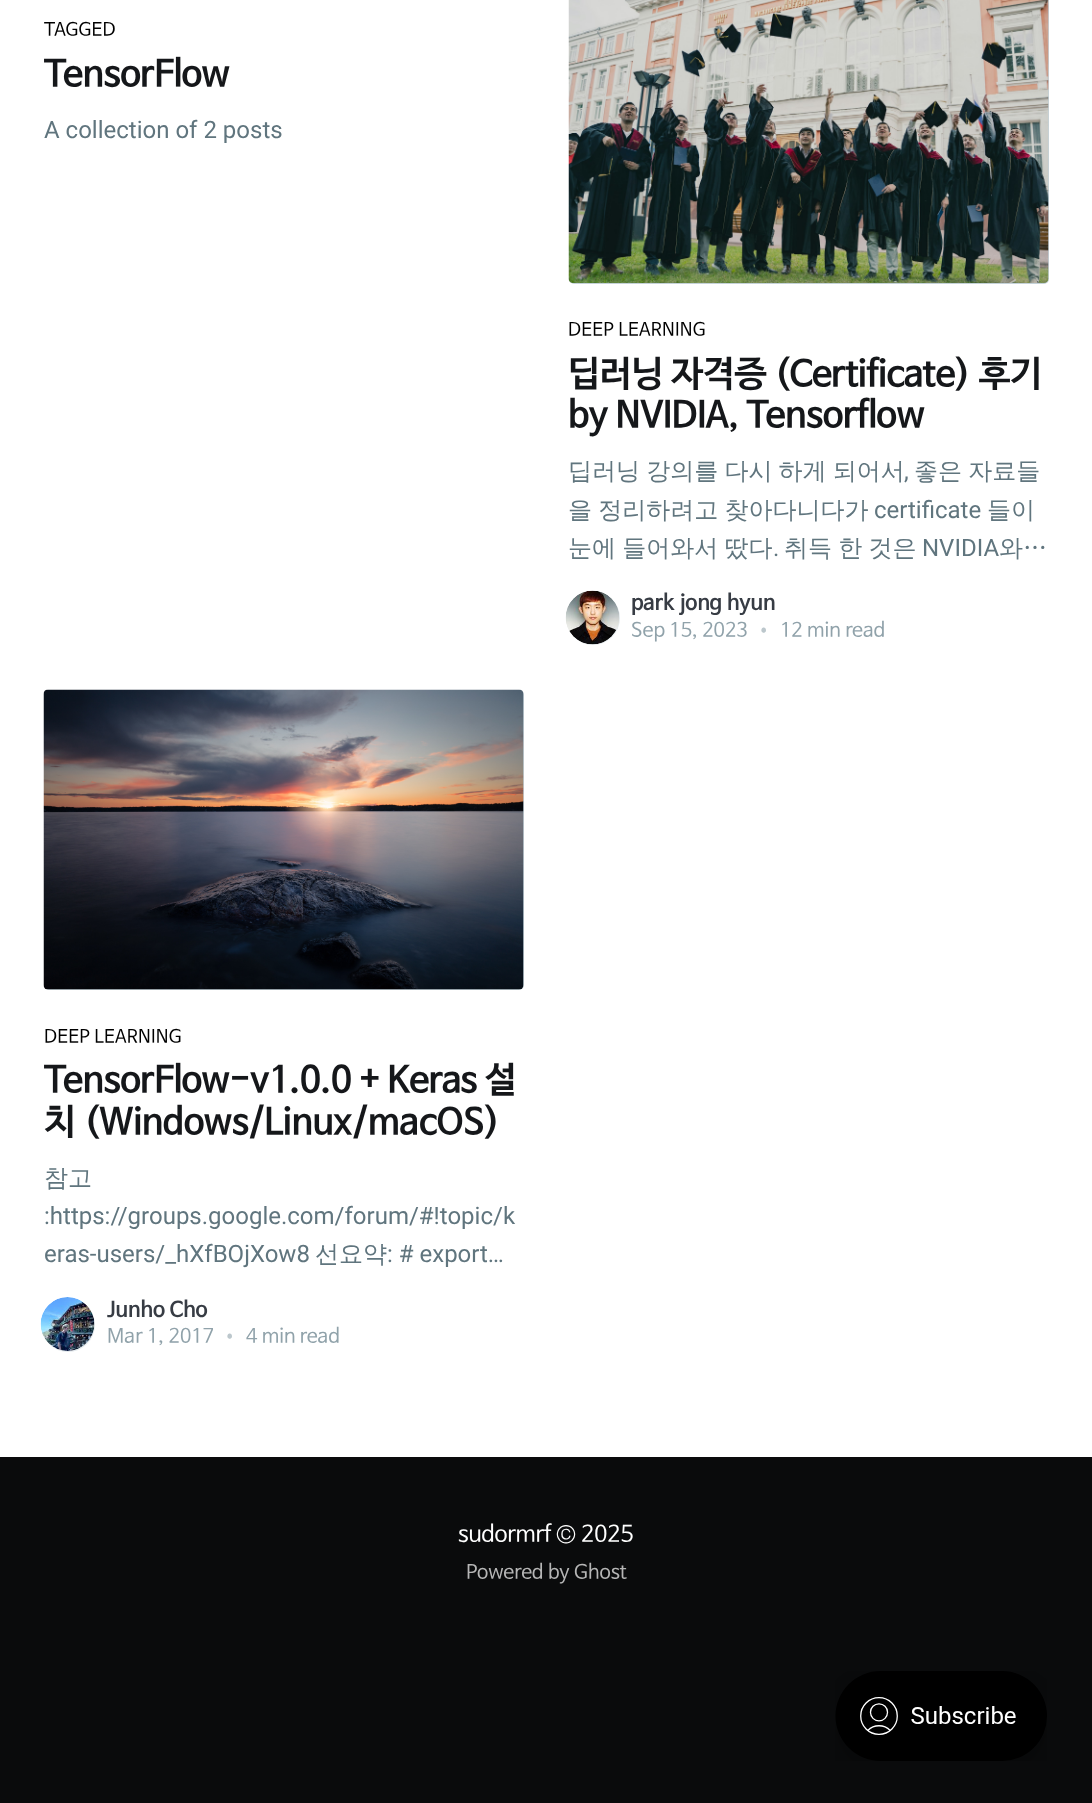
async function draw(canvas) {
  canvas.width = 1092
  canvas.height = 1803
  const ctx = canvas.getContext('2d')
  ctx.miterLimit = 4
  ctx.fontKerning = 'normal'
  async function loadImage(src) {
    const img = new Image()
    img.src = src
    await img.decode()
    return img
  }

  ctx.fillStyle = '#fff'
  ctx.fillRect(0, 0, 1092, 1803)
  ctx.letterSpacing = '0.25px'
  ctx.font = '18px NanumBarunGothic'
  ctx.fillStyle = '#000'
  ctx.fillText('TAGGED', 44, 35)
  ctx.letterSpacing = '-0.35px'
  ctx.font = 'bold 36px NanumBarunGothic'
  ctx.fillStyle = '#15171a'
  ctx.fillText('TensorFlow', 44, 85)
  ctx.letterSpacing = '0px'
  ctx.font = '24px Roboto'
  ctx.fillStyle = '#60757e'
  ctx.fillText('A collection of 2 posts', 44, 138)
  ctx.fillStyle = '#c5d2d9'
  ctx.beginPath()
  ctx.roundRect(569, -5, 480, 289, 5)
  ctx.fill()
  ctx.drawImage(await loadImage('image0.png'), 568, 0, 481, 283)
  ctx.letterSpacing = '0.25px'
  ctx.font = '18px NanumBarunGothic'
  ctx.fillStyle = '#000'
  ctx.fillText('DEEP LEARNING', 568, 335)
  ctx.letterSpacing = '-0.35px'
  ctx.font = 'bold 36px NanumBarunGothic'
  ctx.fillStyle = '#15171a'
  ctx.fillText('딥러닝 자격증 (Certificate) 후기', 568, 385)
  ctx.fillText('by NVIDIA, Tensorflow', 568, 426)
  ctx.letterSpacing = '0px'
  ctx.wordSpacing = '-1px'
  ctx.font = '500 24px WenQuanYi Zen Hei'
  ctx.fillStyle = '#60757e'
  ctx.fillText('딥러닝 강의를 다시 하게 되어서', 568, 479)
  ctx.wordSpacing = '0px'
  ctx.font = '24px Roboto'
  ctx.fillText(',', 904, 479)
  ctx.wordSpacing = '-1px'
  ctx.font = '500 24px WenQuanYi Zen Hei'
  ctx.fillText('좋은 자료들', 914, 479)
  ctx.fillText('을 정리하려고 찾아다니다가', 568, 518)
  ctx.wordSpacing = '0px'
  ctx.font = '24px Roboto'
  ctx.fillText('certificate', 874, 518)
  ctx.font = '500 24px WenQuanYi Zen Hei'
  ctx.fillText('들이', 987, 518)
  ctx.wordSpacing = '-1px'
  ctx.fillText('눈에 들어와서 땄다', 568, 556)
  ctx.wordSpacing = '0px'
  ctx.font = '24px Roboto'
  ctx.fillText('.', 773, 556)
  ctx.wordSpacing = '-1px'
  ctx.font = '500 24px WenQuanYi Zen Hei'
  ctx.fillText('취득 한 것은', 784, 556)
  ctx.wordSpacing = '0px'
  ctx.font = '24px Roboto'
  ctx.fillText('NVIDIA', 922, 556)
  ctx.font = '500 24px WenQuanYi Zen Hei'
  ctx.fillText('와…', 999, 556)
  ctx.fillStyle = '#e4eaed'
  ctx.beginPath()
  ctx.arc(593, 618, 27, 0, 2 * Math.PI)
  ctx.fill()
  ctx.drawImage(await loadImage('image1.png'), 565, 590, 54, 55)
  ctx.font = 'bold 21px NanumBarunGothic'
  ctx.fillStyle = '#373c44'
  ctx.fillText('park jong hyun', 631, 609)
  ctx.font = '19.5px NanumBarunGothic'
  ctx.fillStyle = '#90a2aa'
  ctx.fillText('Sep 15, 2023', 631, 636)
  ctx.fillStyle = '#bcc7cc'
  ctx.fillText('•', 755, 636)
  ctx.fillStyle = '#90a2aa'
  ctx.fillText('12 min read', 780, 636)
  ctx.fillStyle = '#c5d2d9'
  ctx.beginPath()
  ctx.roundRect(44, 690, 480, 300, 5)
  ctx.fill()
  ctx.drawImage(await loadImage('image2.png'), 43, 689, 481, 301)
  ctx.letterSpacing = '0.25px'
  ctx.font = '18px NanumBarunGothic'
  ctx.fillStyle = '#000'
  ctx.fillText('DEEP LEARNING', 44, 1042)
  ctx.letterSpacing = '-0.35px'
  ctx.font = 'bold 36px NanumBarunGothic'
  ctx.fillStyle = '#15171a'
  ctx.fillText('TensorFlow-v1.0.0 + Keras 설', 44, 1091)
  ctx.fillText('치 (Windows/Linux/macOS)', 44, 1133)
  ctx.letterSpacing = '0px'
  ctx.font = '500 24px WenQuanYi Zen Hei'
  ctx.fillStyle = '#60757e'
  ctx.fillText('참고', 44, 1186)
  ctx.font = '24px Roboto'
  ctx.fillText(':https://groups.google.com/forum/#!topic/k', 44, 1224)
  ctx.fillText('eras-users/_hXfBOjXow8', 44, 1262)
  ctx.font = '500 24px WenQuanYi Zen Hei'
  ctx.fillText('선요약', 315, 1262)
  ctx.font = '24px Roboto'
  ctx.fillText(': # export…', 387, 1262)
  ctx.fillStyle = '#e4eaed'
  ctx.beginPath()
  ctx.arc(68, 1325, 27, 0, 2 * Math.PI)
  ctx.fill()
  ctx.drawImage(await loadImage('image3.png'), 40, 1297, 55, 54)
  ctx.font = 'bold 21px NanumBarunGothic'
  ctx.fillStyle = '#373c44'
  ctx.fillText('Junho Cho', 107, 1316)
  ctx.font = '19.5px NanumBarunGothic'
  ctx.fillStyle = '#90a2aa'
  ctx.fillText('Mar 1, 2017', 107, 1342)
  ctx.fillStyle = '#bcc7cc'
  ctx.fillText('•', 221, 1342)
  ctx.fillStyle = '#90a2aa'
  ctx.fillText('4 min read', 246, 1342)
  ctx.fillStyle = '#0a0b0c'
  ctx.fillRect(0, 1457, 1092, 346)
  ctx.letterSpacing = '-0.25px'
  ctx.font = '22.5px NanumBarunGothic'
  ctx.fillStyle = '#fff'
  ctx.fillText('sudormrf', 458, 1541)
  ctx.letterSpacing = '0px'
  ctx.fillText('© 2025', 556, 1541)
  ctx.font = '19.5px NanumBarunGothic'
  ctx.fillStyle = '#b6b6b6'
  ctx.fillText('Powered by Ghost', 466, 1578)
  ctx.drawImage(await loadImage('image4.png'), 835, 1671, 212, 90)
}

draw(document.querySelector('canvas'))
